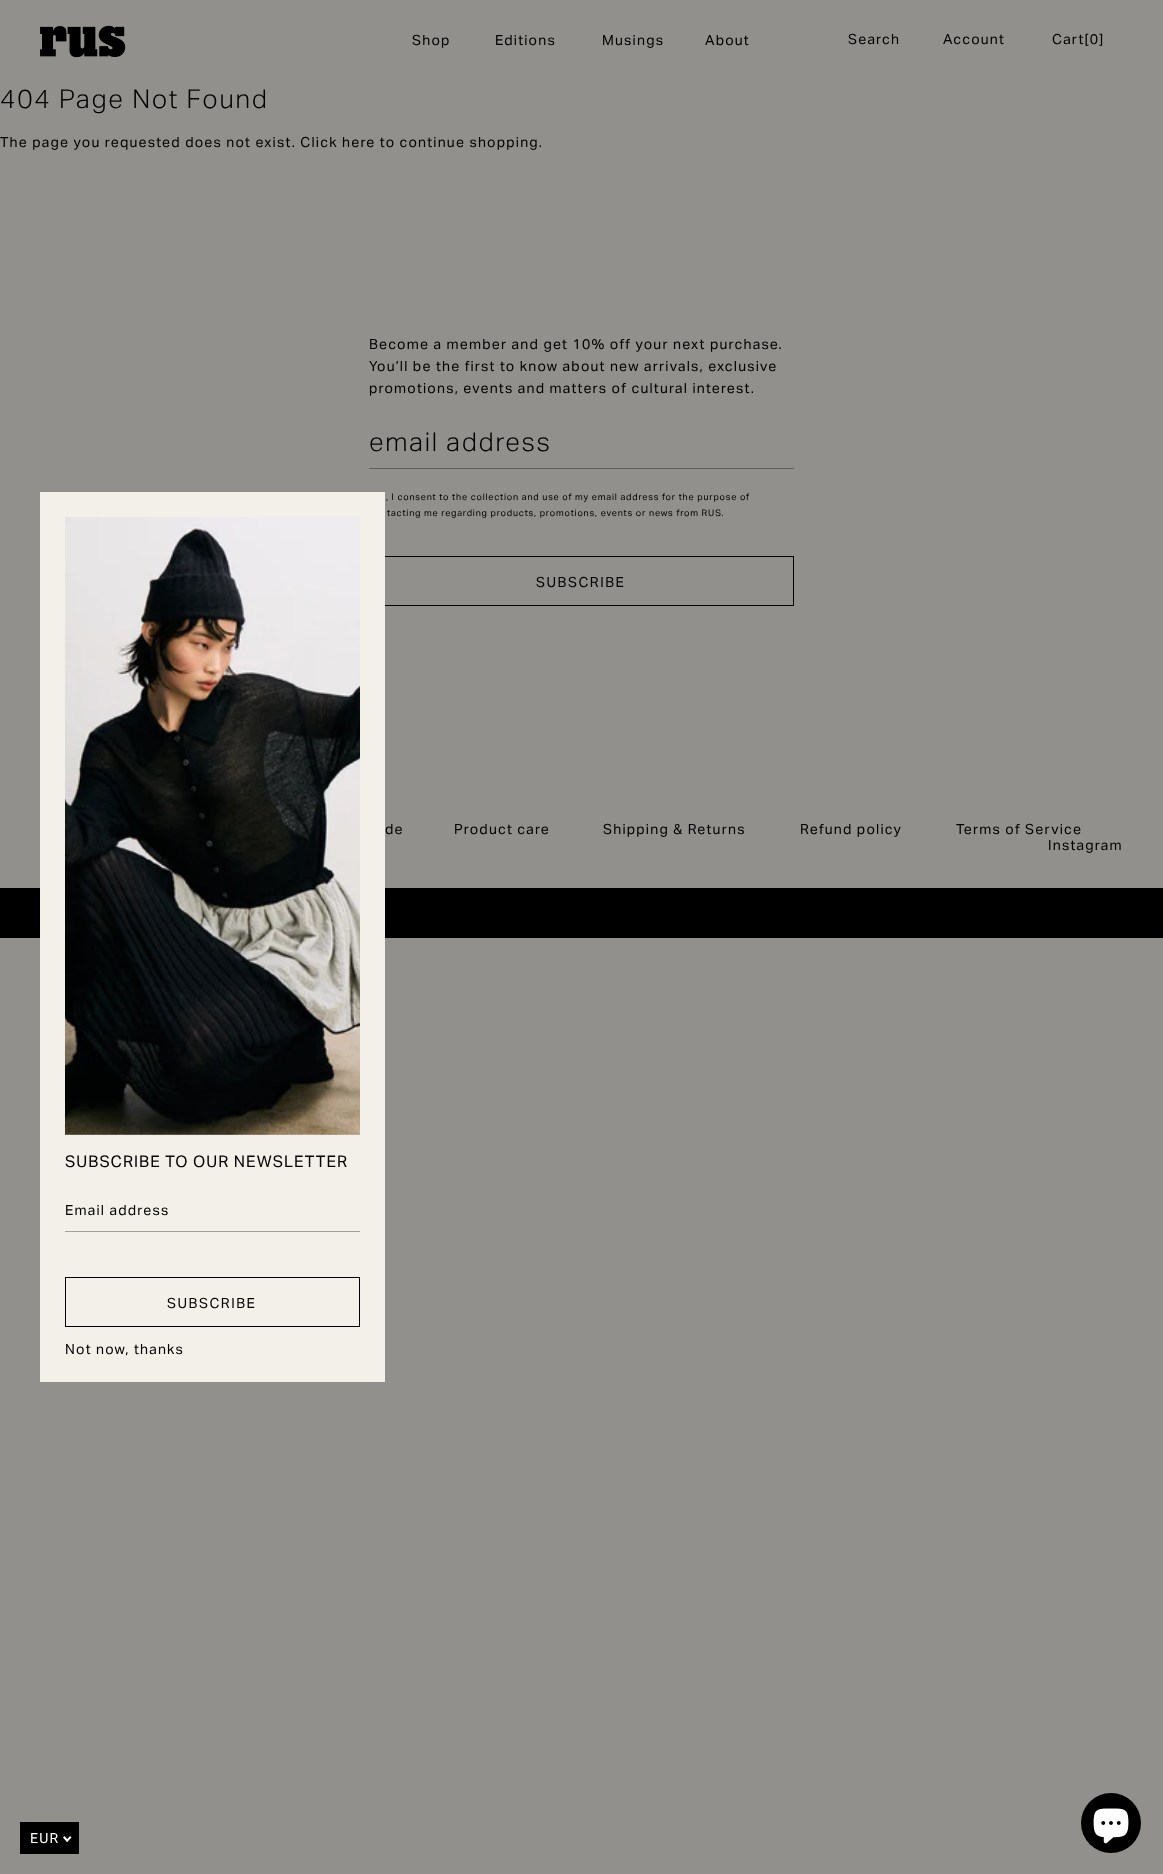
async function draw(canvas) {
  canvas.width = 1163
  canvas.height = 1874
  const ctx = canvas.getContext('2d')
  ctx.miterLimit = 4
  ctx.fontKerning = 'normal'
  async function loadImage(src) {
    const img = new Image()
    img.src = src
    await img.decode()
    return img
  }

  ctx.fillStyle = '#91908c'
  ctx.fillRect(0, 0, 1163, 1874)
  ctx.drawImage(await loadImage('image0.png'), 40, 25, 86, 33)
  ctx.letterSpacing = '1.2px'
  ctx.font = '14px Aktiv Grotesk'
  ctx.fillStyle = '#000'
  ctx.fillText('Shop', 412, 45)
  ctx.fillText('Editions', 495, 45)
  ctx.fillText('Musings', 602, 45)
  ctx.fillText('About', 705, 45)
  ctx.fillText('Search', 848, 44)
  ctx.fillText('Account', 943, 44)
  ctx.fillText('Cart[0]', 1052, 44)
  ctx.letterSpacing = '1.75px'
  ctx.font = '300 26px Aktiv Grotesk'
  ctx.fillText('404 Page Not Found', 0, 108)
  ctx.letterSpacing = '1.2px'
  ctx.font = '14px Aktiv Grotesk'
  ctx.fillText('The page you requested does not exist. Click here to continue shopping.', 0, 147)
  ctx.fillText('Become a member and get 10% off your next purchase.', 369, 349)
  ctx.fillText('You’ll be the first to know about new arrivals, exclusive', 369, 371)
  ctx.fillText('promotions, events and matters of cultural interest.', 369, 393)
  ctx.fillStyle = '#61605b'
  ctx.fillRect(369, 468, 425, 1)
  ctx.letterSpacing = '1.75px'
  ctx.font = '300 26px Aktiv Grotesk'
  ctx.fillStyle = '#000'
  ctx.fillText('email address', 369, 451)
  ctx.letterSpacing = '0.8px'
  ctx.font = '9px Aktiv Grotesk'
  ctx.fillText(', I consent to the collection and use of my email address for the purpose of', 386, 500)
  ctx.fillText('tacting me regarding products, promotions, events or news from RUS.', 387, 516)
  ctx.strokeStyle = '#000'
  ctx.strokeRect(369.5, 556.5, 424, 49)
  ctx.letterSpacing = '1.5px'
  ctx.font = '14px Aktiv Grotesk'
  ctx.fillText('SUBSCRIBE', 536, 587)
  ctx.letterSpacing = '1.2px'
  ctx.fillText('de', 385, 834)
  ctx.fillText('Product care', 454, 834)
  ctx.fillText('Shipping & Returns', 603, 834)
  ctx.fillText('Refund policy', 800, 834)
  ctx.fillText('Terms of Service', 956, 834)
  ctx.fillText('Instagram', 1048, 850)
  ctx.fillRect(0, 888, 1163, 50)
  ctx.fillStyle = '#f2f0e9'
  ctx.fillRect(40, 492, 345, 890)
  ctx.drawImage(await loadImage('image1.png'), 65, 517, 295, 618)
  ctx.letterSpacing = '1px'
  ctx.font = '16px Aktiv Grotesk'
  ctx.fillStyle = '#000'
  ctx.fillText('SUBSCRIBE TO OUR NEWSLETTER', 65, 1167)
  ctx.fillStyle = '#a2a098'
  ctx.fillRect(65, 1231, 295, 1)
  ctx.letterSpacing = '1.2px'
  ctx.font = '14px Aktiv Grotesk'
  ctx.fillStyle = '#000'
  ctx.fillText('Email address', 65, 1215)
  ctx.strokeRect(65.5, 1277.5, 294, 49)
  ctx.letterSpacing = '1.5px'
  ctx.fillText('SUBSCRIBE', 167, 1308)
  ctx.letterSpacing = '1.2px'
  ctx.fillText('Not now, thanks', 65, 1354)
  ctx.fillRect(20, 1822, 59, 32)
  ctx.font = '14px Roboto'
  ctx.fillStyle = '#fff'
  ctx.fillText('EUR', 30, 1843)
  ctx.beginPath()
  ctx.moveTo(70, 1836)
  ctx.lineTo(71.5, 1837.5)
  ctx.lineTo(67, 1842)
  ctx.lineTo(66, 1840.5)
  ctx.closePath()
  ctx.fill()
  ctx.beginPath()
  ctx.moveTo(64.5, 1836)
  ctx.lineTo(68.5, 1840.5)
  ctx.lineTo(67, 1842)
  ctx.lineTo(63, 1837.5)
  ctx.closePath()
  ctx.fill()
  ctx.fillStyle = '#000'
  ctx.beginPath()
  ctx.arc(1111, 1823, 30, 0, 2 * Math.PI)
  ctx.fill()
  ctx.drawImage(await loadImage('image2.png'), 1093, 1808, 36, 36)
}

draw(document.querySelector('canvas'))
